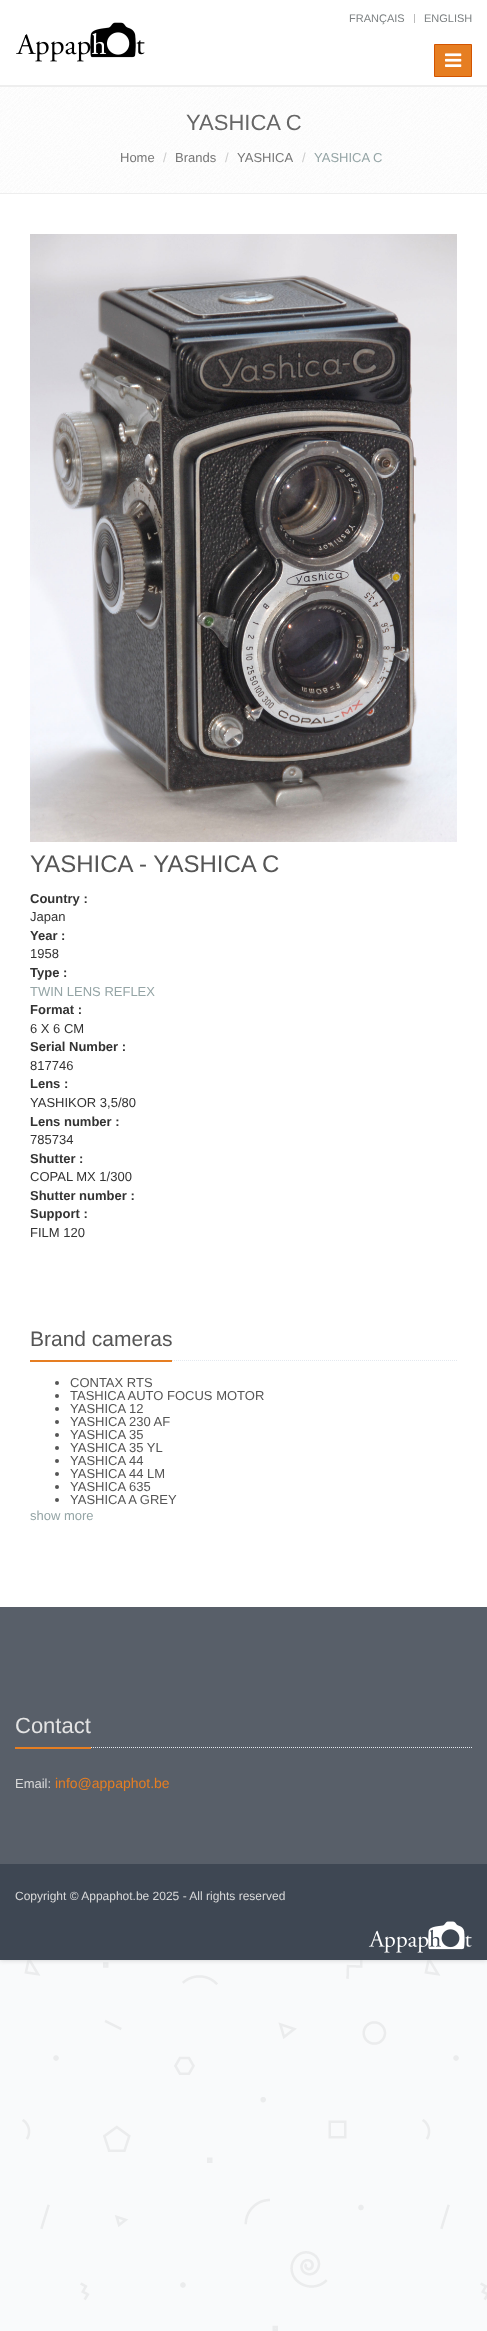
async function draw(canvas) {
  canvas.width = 487
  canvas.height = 2331
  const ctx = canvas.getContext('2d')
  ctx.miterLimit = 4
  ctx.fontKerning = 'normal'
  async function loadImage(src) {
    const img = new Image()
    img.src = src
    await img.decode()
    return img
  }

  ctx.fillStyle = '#fff'
  ctx.fillRect(0, 0, 487, 2331)
  ctx.drawImage(await loadImage('image0.png'), 0, 1960, 487, 371)
  ctx.fillStyle = '#ccc'
  ctx.filter = 'blur(2.5px)'
  ctx.beginPath()
  ctx.rect(0, 0, 487, 1960)
  ctx.fill()
  ctx.filter = 'none'
  ctx.fillStyle = '#fff'
  ctx.fillRect(0, 0, 487, 1607)
  ctx.fillStyle = '#eee'
  ctx.fillRect(0, 85, 487, 2)
  ctx.font = '11px Liberation Sans'
  ctx.fillStyle = '#7c8082'
  ctx.fillText('FRANÇAIS', 349, 22)
  ctx.fillStyle = '#bbb'
  ctx.fillRect(414, 14, 1, 9)
  ctx.fillStyle = '#7c8082'
  ctx.fillText('ENGLISH', 424, 22)
  ctx.drawImage(await loadImage('image1.png'), 16, 22, 129, 40)
  ctx.fillStyle = '#e67e22'
  ctx.beginPath()
  ctx.rect(434.5, 44.5, 37, 32)
  ctx.fill()
  ctx.strokeStyle = '#d35400'
  ctx.stroke()
  ctx.drawImage(await loadImage('image2.png'), 445, 53, 17, 14)
  ctx.drawImage(await loadImage('image3.png'), 0, 87, 487, 106)
  ctx.fillStyle = '#eee'
  ctx.fillRect(0, 193, 487, 1)
  ctx.font = '22px Liberation Sans'
  ctx.fillStyle = '#666'
  ctx.fillText('YASHICA C', 186, 130)
  ctx.font = '13px Liberation Sans'
  ctx.fillStyle = '#777'
  ctx.fillText('Home', 120, 162)
  ctx.fillStyle = '#ccc'
  ctx.fillText('/', 163, 162)
  ctx.fillStyle = '#777'
  ctx.fillText('Brands', 175, 162)
  ctx.fillStyle = '#ccc'
  ctx.fillText('/', 225, 162)
  ctx.fillStyle = '#777'
  ctx.fillText('YASHICA', 237, 162)
  ctx.fillStyle = '#ccc'
  ctx.fillText('/', 302, 162)
  ctx.fillStyle = '#95a5a6'
  ctx.fillText('YASHICA C', 314, 162)
  ctx.drawImage(await loadImage('image4.png'), 30, 234, 427, 608)
  ctx.font = '24px Liberation Sans'
  ctx.fillStyle = '#555'
  ctx.fillText('YASHICA - YASHICA C', 30, 872)
  ctx.font = 'bold 13px Liberation Sans'
  ctx.fillStyle = '#333'
  ctx.fillText('Country :', 30, 903)
  ctx.font = '13px Liberation Sans'
  ctx.fillText('Japan', 30, 921)
  ctx.font = 'bold 13px Liberation Sans'
  ctx.fillText('Year :', 30, 940)
  ctx.font = '13px Liberation Sans'
  ctx.fillText('1958', 30, 958)
  ctx.font = 'bold 13px Liberation Sans'
  ctx.fillText('Type :', 30, 977)
  ctx.font = '13px Liberation Sans'
  ctx.fillStyle = '#95a5a6'
  ctx.fillText('TWIN LENS REFLEX', 30, 996)
  ctx.font = 'bold 13px Liberation Sans'
  ctx.fillStyle = '#333'
  ctx.fillText('Format :', 30, 1014)
  ctx.font = '13px Liberation Sans'
  ctx.fillText('6 X 6 CM', 30, 1033)
  ctx.font = 'bold 13px Liberation Sans'
  ctx.fillText('Serial Number :', 30, 1051)
  ctx.font = '13px Liberation Sans'
  ctx.fillText('817746', 30, 1070)
  ctx.font = 'bold 13px Liberation Sans'
  ctx.fillText('Lens :', 30, 1088)
  ctx.font = '13px Liberation Sans'
  ctx.fillText('YASHIKOR 3,5/80', 30, 1107)
  ctx.font = 'bold 13px Liberation Sans'
  ctx.fillText('Lens number :', 30, 1126)
  ctx.font = '13px Liberation Sans'
  ctx.fillText('785734', 30, 1144)
  ctx.font = 'bold 13px Liberation Sans'
  ctx.fillText('Shutter :', 30, 1163)
  ctx.font = '13px Liberation Sans'
  ctx.fillText('COPAL MX 1/300', 30, 1181)
  ctx.font = 'bold 13px Liberation Sans'
  ctx.fillText('Shutter number :', 30, 1200)
  ctx.fillText('Support :', 30, 1218)
  ctx.font = '13px Liberation Sans'
  ctx.fillText('FILM 120', 30, 1237)
  ctx.beginPath()
  ctx.moveTo(30, 1360.5)
  ctx.lineTo(457, 1360.5)
  ctx.strokeStyle = '#e4e9f0'
  ctx.setLineDash([1, 1])
  ctx.stroke()
  ctx.fillStyle = '#e67e22'
  ctx.fillRect(30, 1360, 142, 2)
  ctx.font = '21px Liberation Sans'
  ctx.fillStyle = '#555'
  ctx.fillText('Brand cameras', 30, 1346)
  ctx.beginPath()
  ctx.arc(57, 1383, 2, 0, 2 * Math.PI)
  ctx.fill()
  ctx.font = '13px Liberation Sans'
  ctx.fillText('CONTAX RTS', 70, 1387)
  ctx.beginPath()
  ctx.arc(57, 1396, 2, 0, 2 * Math.PI)
  ctx.fill()
  ctx.fillText('TASHICA AUTO FOCUS MOTOR', 70, 1400)
  ctx.beginPath()
  ctx.arc(57, 1409, 2, 0, 2 * Math.PI)
  ctx.fill()
  ctx.fillText('YASHICA 12', 70, 1413)
  ctx.beginPath()
  ctx.arc(57, 1422, 2, 0, 2 * Math.PI)
  ctx.fill()
  ctx.fillText('YASHICA 230 AF', 70, 1426)
  ctx.beginPath()
  ctx.arc(57, 1435, 2, 0, 2 * Math.PI)
  ctx.fill()
  ctx.fillText('YASHICA 35', 70, 1439)
  ctx.beginPath()
  ctx.arc(57, 1448, 2, 0, 2 * Math.PI)
  ctx.fill()
  ctx.fillText('YASHICA 35 YL', 70, 1452)
  ctx.beginPath()
  ctx.arc(57, 1461, 2, 0, 2 * Math.PI)
  ctx.fill()
  ctx.fillText('YASHICA 44', 70, 1465)
  ctx.beginPath()
  ctx.arc(57, 1474, 2, 0, 2 * Math.PI)
  ctx.fill()
  ctx.fillText('YASHICA 44 LM', 70, 1478)
  ctx.beginPath()
  ctx.arc(57, 1487, 2, 0, 2 * Math.PI)
  ctx.fill()
  ctx.fillText('YASHICA 635', 70, 1491)
  ctx.beginPath()
  ctx.arc(57, 1500, 2, 0, 2 * Math.PI)
  ctx.fill()
  ctx.fillText('YASHICA A GREY', 70, 1504)
  ctx.fillStyle = '#95a5a6'
  ctx.fillText('show more', 30, 1520)
  ctx.fillStyle = '#585f69'
  ctx.fillRect(0, 1607, 487, 257)
  ctx.beginPath()
  ctx.moveTo(15, 1747.5)
  ctx.lineTo(472, 1747.5)
  ctx.stroke()
  ctx.fillStyle = '#e67e22'
  ctx.fillRect(15, 1747, 76, 2)
  ctx.font = '22px Liberation Sans'
  ctx.fillStyle = '#e4e4e4'
  ctx.fillText('Contact', 15, 1733)
  ctx.font = '13px Liberation Sans'
  ctx.fillStyle = '#dadada'
  ctx.fillText('Email:', 15, 1788)
  ctx.font = '14px Liberation Sans'
  ctx.fillStyle = '#e67e22'
  ctx.fillText('info@appaphot.be', 55, 1788)
  ctx.fillStyle = '#3e4753'
  ctx.fillRect(0, 1864, 487, 96)
  ctx.font = '12px Liberation Sans'
  ctx.fillStyle = '#dadada'
  ctx.fillText('Copyright © Appaphot.be 2025 - All rights reserved', 15, 1900)
  ctx.drawImage(await loadImage('image5.png'), 368, 1921, 104, 32)
}

draw(document.querySelector('canvas'))
